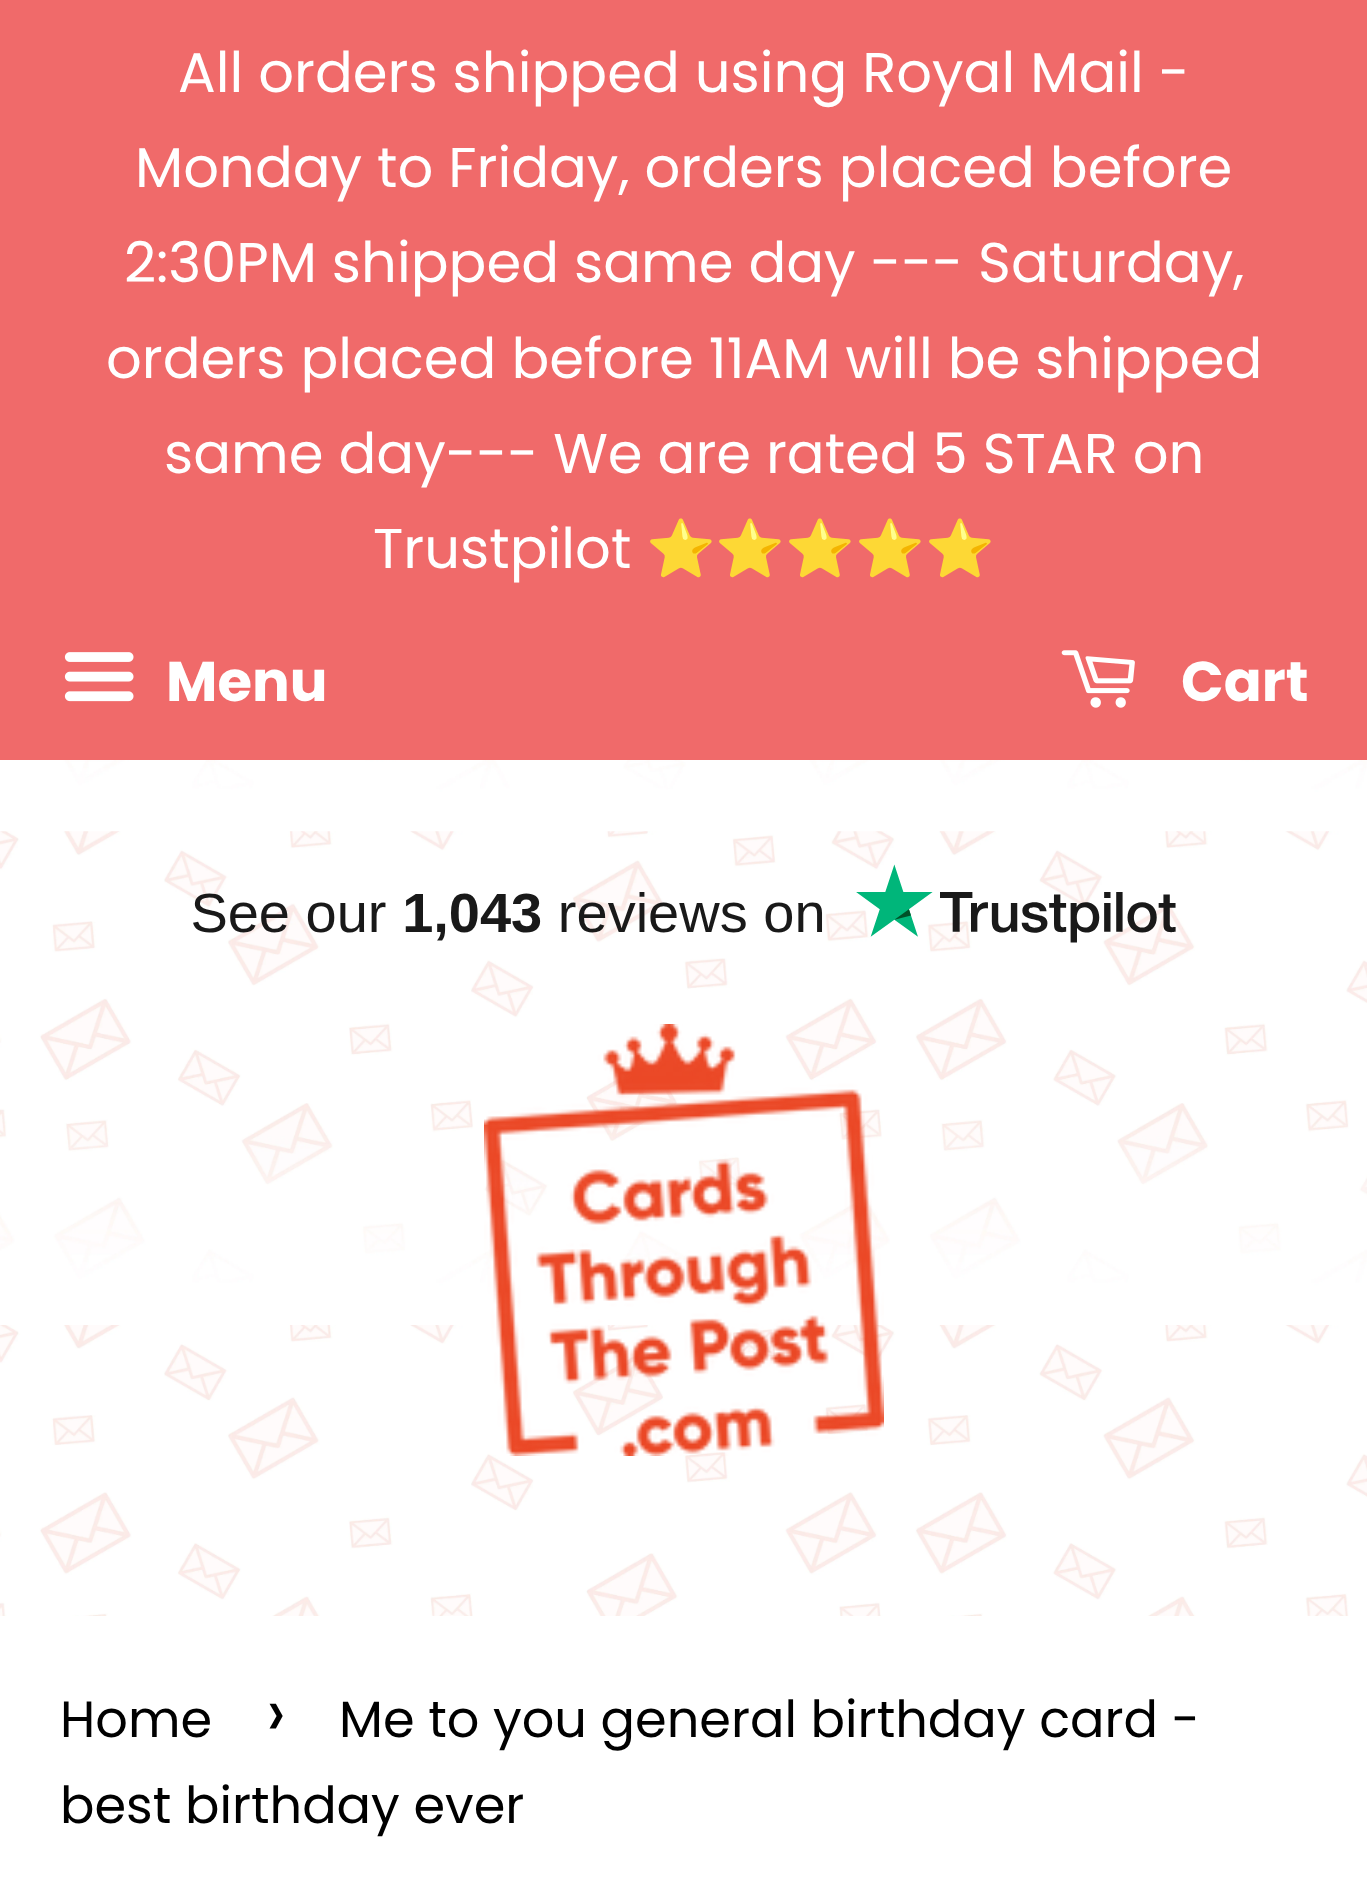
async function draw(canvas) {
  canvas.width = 1367
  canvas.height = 1881
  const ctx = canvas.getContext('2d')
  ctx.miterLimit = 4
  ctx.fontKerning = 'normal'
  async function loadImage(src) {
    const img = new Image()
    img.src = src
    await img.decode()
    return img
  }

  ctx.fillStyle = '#fff'
  ctx.fillRect(0, 0, 1367, 1881)
  ctx.fillStyle = '#f06a6a'
  ctx.fillRect(0, 0, 1367, 760)
  ctx.font = '56px Poppins'
  ctx.fillStyle = '#fff'
  ctx.fillText('All orders shipped using Royal Mail -', 178, 92)
  ctx.fillText('Monday to Friday, orders placed before', 135, 187)
  ctx.fillText('2:30PM shipped same day --- Saturday,', 124, 282)
  ctx.fillText('orders placed before 11AM will be shipped', 106, 378)
  ctx.fillText('same day--- We are rated 5 STAR on', 164, 473)
  ctx.fillText('Trustpilot', 373, 568)
  ctx.font = '56px Noto Color Emoji'
  ctx.fillText('⭐️⭐️⭐️⭐️⭐️', 646, 568)
  ctx.drawImage(await loadImage('image0.png'), 64, 652, 70, 50)
  ctx.font = 'bold 56px Poppins'
  ctx.fillText('Menu', 166, 701)
  ctx.drawImage(await loadImage('image1.png'), 1061, 650, 74, 58)
  ctx.fillText('Cart', 1181, 701)
  ctx.drawImage(await loadImage('image2.png'), 0, 760, 1367, 856)
  ctx.drawImage(await loadImage('image3.png'), 193, 864, 983, 79)
  ctx.drawImage(await loadImage('image4.png'), 484, 1024, 400, 432)
  ctx.font = '51px Poppins'
  ctx.fillStyle = '#000'
  ctx.fillText('Home', 60, 1737)
  ctx.font = '71px Poppins'
  ctx.fillText('›', 266, 1737)
  ctx.font = '51px Poppins'
  ctx.fillText('Me to you general birthday card -', 339, 1737)
  ctx.fillText('best birthday ever', 60, 1823)
}

draw(document.querySelector('canvas'))
